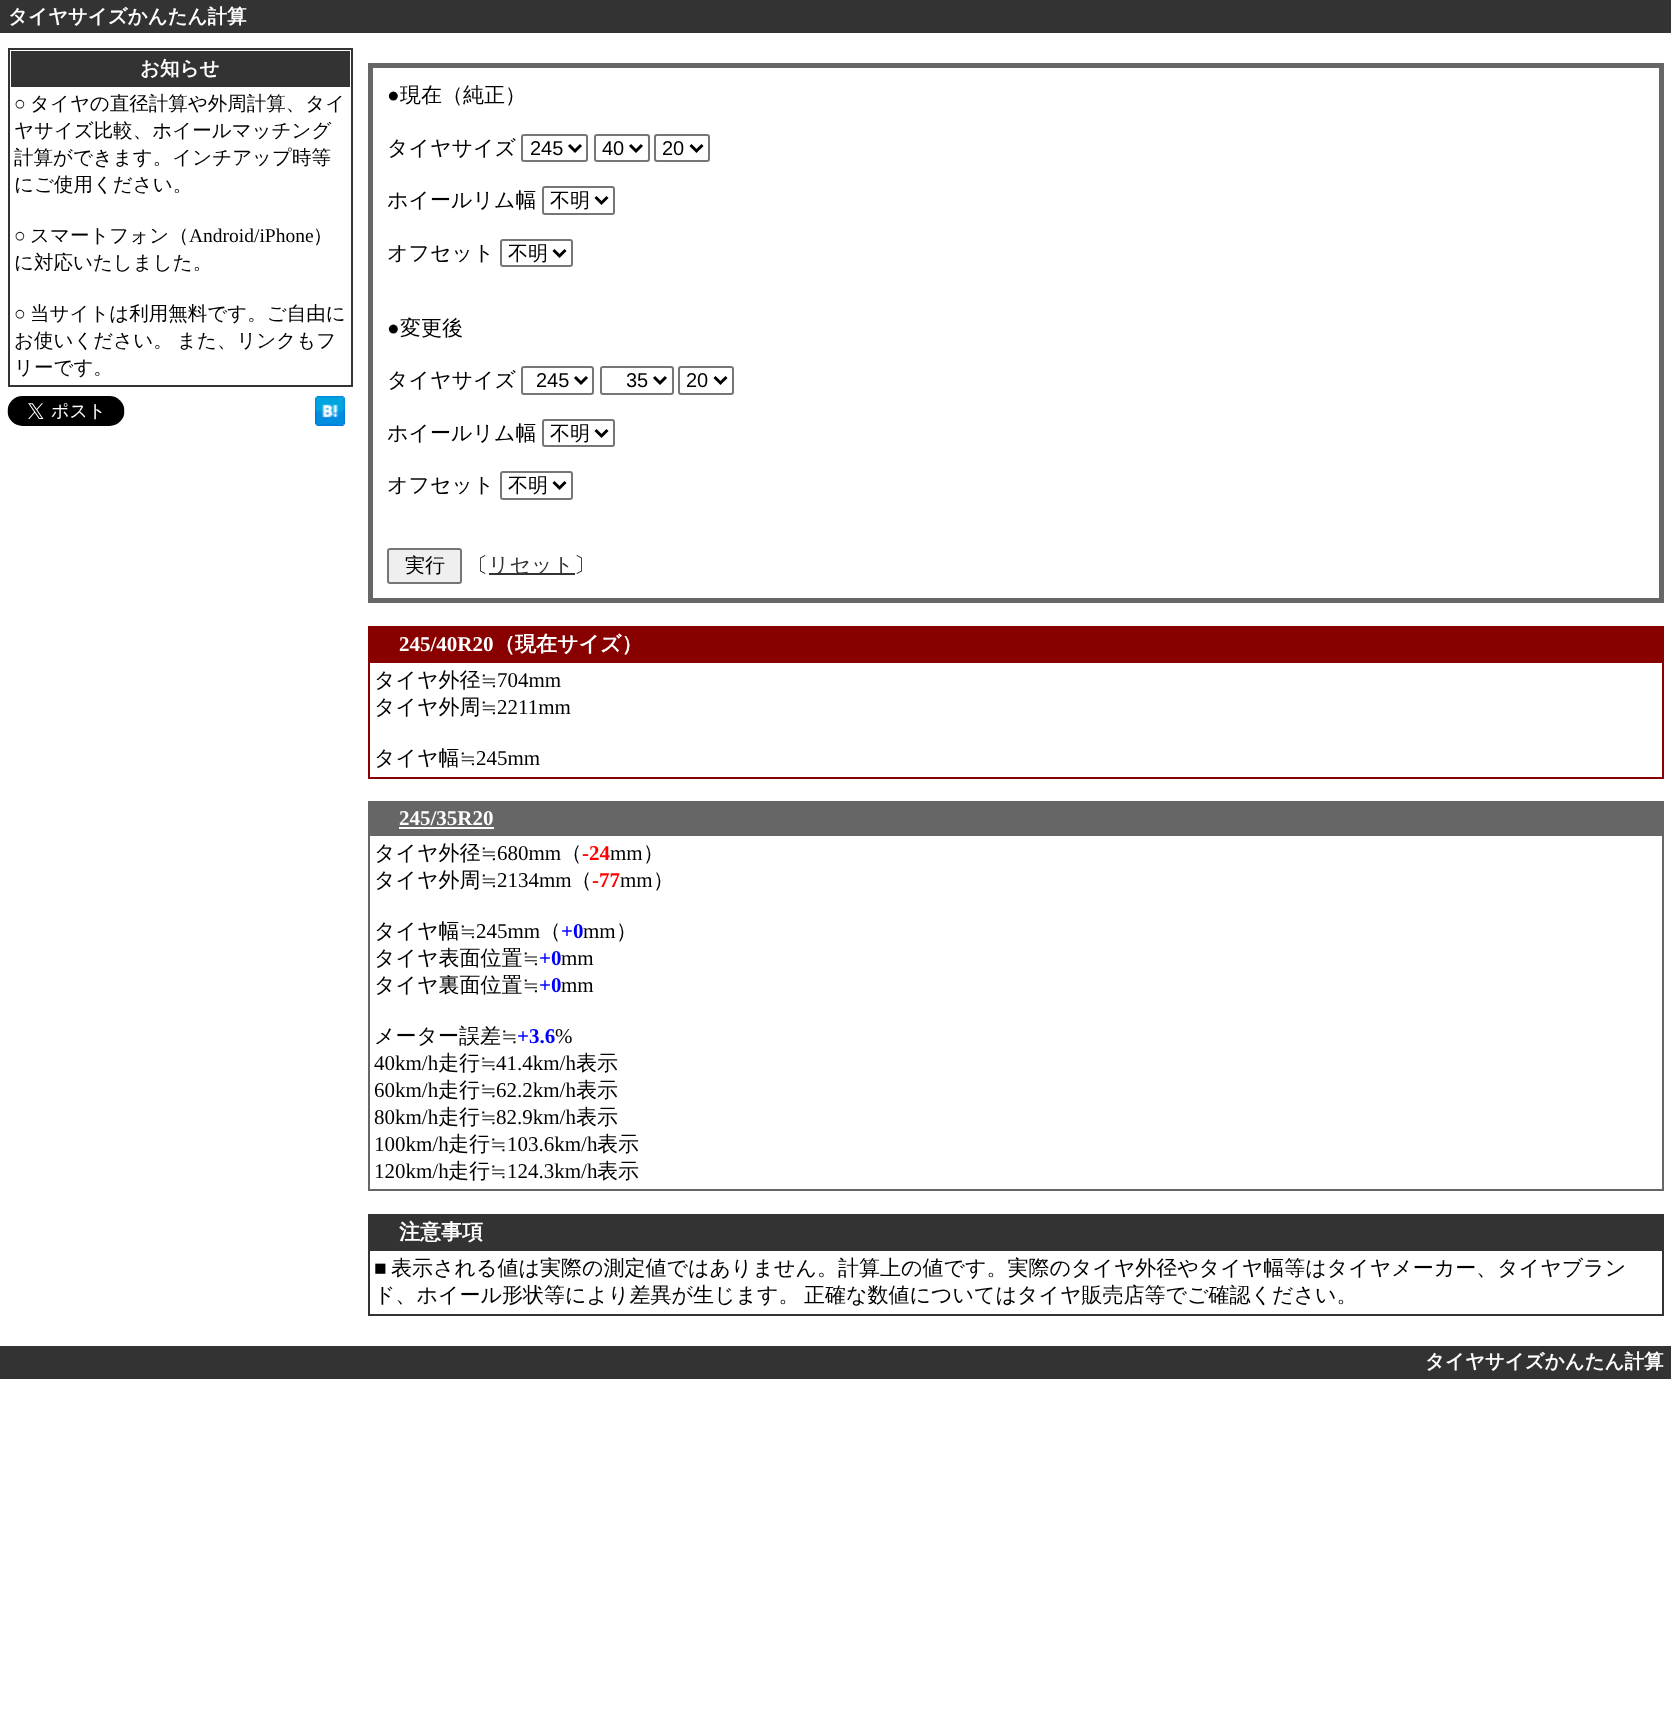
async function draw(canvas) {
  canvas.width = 1671
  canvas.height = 1732
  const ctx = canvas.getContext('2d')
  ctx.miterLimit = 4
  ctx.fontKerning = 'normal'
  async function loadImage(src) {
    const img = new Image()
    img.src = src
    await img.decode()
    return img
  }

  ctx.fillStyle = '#fff'
  ctx.fillRect(0, 0, 1671, 1732)
  ctx.fillStyle = '#333'
  ctx.fillRect(0, 0, 1671, 33)
  ctx.font = 'bold 19.5px WenQuanYi Zen Hei'
  ctx.fillStyle = '#fff'
  ctx.fillText('タイヤサイズかんたん計算', 8, 23)
  ctx.strokeStyle = '#333'
  ctx.lineWidth = 2
  ctx.strokeRect(9, 49, 343, 337)
  ctx.fillStyle = '#333'
  ctx.fillRect(11, 51, 339, 36)
  ctx.fillStyle = '#fff'
  ctx.fillText('お知らせ', 140, 75)
  ctx.font = '19.5px Liberation Serif'
  ctx.fillStyle = '#000'
  ctx.fillText('○', 14, 110)
  ctx.font = '500 19.5px WenQuanYi Zen Hei'
  ctx.fillText('タイヤの直径計算や外周計算、タイ', 30, 110)
  ctx.fillText('ヤサイズ比較、ホイールマッチング', 14, 137)
  ctx.fillText('計算ができます。インチアップ時等', 14, 164)
  ctx.fillText('にご使用ください。', 14, 191)
  ctx.font = '19.5px Liberation Serif'
  ctx.fillText('○', 14, 242)
  ctx.font = '500 19.5px WenQuanYi Zen Hei'
  ctx.fillText('スマートフォン（', 30, 242)
  ctx.font = '19.5px Liberation Serif'
  ctx.fillText('Android/iPhone', 189, 242)
  ctx.font = '500 19.5px WenQuanYi Zen Hei'
  ctx.fillText('）', 313, 242)
  ctx.fillText('に対応いたしました。', 14, 269)
  ctx.font = '19.5px Liberation Serif'
  ctx.fillText('○', 14, 320)
  ctx.font = '500 19.5px WenQuanYi Zen Hei'
  ctx.fillText('当サイトは利用無料です。ご自由に', 30, 320)
  ctx.fillText('お使いください。', 14, 347)
  ctx.fillText('また、リンクもフ', 177, 347)
  ctx.fillText('リーです。', 14, 374)
  ctx.drawImage(await loadImage('image0.png'), 7, 396, 118, 30)
  ctx.drawImage(await loadImage('image1.png'), 315, 396, 30, 30)
  ctx.strokeStyle = '#666'
  ctx.lineWidth = 5
  ctx.strokeRect(370.5, 65.5, 1291, 535)
  ctx.font = '21px Liberation Serif'
  ctx.fillText('●', 387, 102)
  ctx.font = '500 21px WenQuanYi Zen Hei'
  ctx.fillText('現在（純正）', 400, 102)
  ctx.fillText('タイヤサイズ', 387, 155)
  ctx.beginPath()
  ctx.roundRect(522, 135, 65, 26, 2)
  ctx.strokeStyle = '#767676'
  ctx.lineWidth = 2
  ctx.stroke()
  ctx.beginPath()
  ctx.moveTo(569, 145)
  ctx.lineTo(575, 151)
  ctx.lineTo(581, 145)
  ctx.strokeStyle = '#000'
  ctx.lineWidth = 3
  ctx.stroke()
  ctx.font = '20px Liberation Sans'
  ctx.fillText('245', 530, 155)
  ctx.beginPath()
  ctx.roundRect(595, 135, 54, 26, 2)
  ctx.strokeStyle = '#767676'
  ctx.lineWidth = 2
  ctx.stroke()
  ctx.beginPath()
  ctx.moveTo(630, 145)
  ctx.lineTo(636, 151)
  ctx.lineTo(642, 145)
  ctx.strokeStyle = '#000'
  ctx.lineWidth = 3
  ctx.stroke()
  ctx.fillText('40', 602, 155)
  ctx.beginPath()
  ctx.roundRect(655, 135, 54, 26, 2)
  ctx.strokeStyle = '#767676'
  ctx.lineWidth = 2
  ctx.stroke()
  ctx.beginPath()
  ctx.moveTo(690.5, 145)
  ctx.lineTo(696.5, 151)
  ctx.lineTo(702.5, 145)
  ctx.strokeStyle = '#000'
  ctx.lineWidth = 3
  ctx.stroke()
  ctx.fillText('20', 662, 155)
  ctx.font = '500 21px WenQuanYi Zen Hei'
  ctx.fillText('ホイールリム幅', 387, 207)
  ctx.beginPath()
  ctx.roundRect(543, 187, 71, 27, 2)
  ctx.strokeStyle = '#767676'
  ctx.lineWidth = 2
  ctx.stroke()
  ctx.beginPath()
  ctx.moveTo(595.5, 197)
  ctx.lineTo(601.5, 203)
  ctx.lineTo(607.5, 197)
  ctx.strokeStyle = '#000'
  ctx.lineWidth = 3
  ctx.stroke()
  ctx.font = '500 20px WenQuanYi Zen Hei'
  ctx.fillText('不明', 550, 207)
  ctx.font = '500 21px WenQuanYi Zen Hei'
  ctx.fillText('オフセット', 387, 260)
  ctx.beginPath()
  ctx.roundRect(501, 240, 71, 26, 2)
  ctx.strokeStyle = '#767676'
  ctx.lineWidth = 2
  ctx.stroke()
  ctx.beginPath()
  ctx.moveTo(553.5, 250)
  ctx.lineTo(559.5, 256)
  ctx.lineTo(565.5, 250)
  ctx.strokeStyle = '#000'
  ctx.lineWidth = 3
  ctx.stroke()
  ctx.font = '500 20px WenQuanYi Zen Hei'
  ctx.fillText('不明', 508, 260)
  ctx.font = '21px Liberation Serif'
  ctx.fillText('●', 387, 335)
  ctx.font = '500 21px WenQuanYi Zen Hei'
  ctx.fillText('変更後', 400, 335)
  ctx.fillText('タイヤサイズ', 387, 387)
  ctx.beginPath()
  ctx.roundRect(522, 367, 71, 27, 2)
  ctx.strokeStyle = '#767676'
  ctx.lineWidth = 2
  ctx.stroke()
  ctx.beginPath()
  ctx.moveTo(575, 377)
  ctx.lineTo(581, 383)
  ctx.lineTo(587, 377)
  ctx.strokeStyle = '#000'
  ctx.lineWidth = 3
  ctx.stroke()
  ctx.font = '20px Liberation Sans'
  ctx.fillText('245', 536, 387)
  ctx.beginPath()
  ctx.roundRect(601, 367, 72, 27, 2)
  ctx.strokeStyle = '#767676'
  ctx.lineWidth = 2
  ctx.stroke()
  ctx.beginPath()
  ctx.moveTo(654, 377)
  ctx.lineTo(660, 383)
  ctx.lineTo(666, 377)
  ctx.strokeStyle = '#000'
  ctx.lineWidth = 3
  ctx.stroke()
  ctx.fillText('35', 626, 387)
  ctx.beginPath()
  ctx.roundRect(679, 367, 54, 27, 2)
  ctx.strokeStyle = '#767676'
  ctx.lineWidth = 2
  ctx.stroke()
  ctx.beginPath()
  ctx.moveTo(714.5, 377)
  ctx.lineTo(720.5, 383)
  ctx.lineTo(726.5, 377)
  ctx.strokeStyle = '#000'
  ctx.lineWidth = 3
  ctx.stroke()
  ctx.fillText('20', 686, 387)
  ctx.font = '500 21px WenQuanYi Zen Hei'
  ctx.fillText('ホイールリム幅', 387, 440)
  ctx.beginPath()
  ctx.roundRect(543, 420, 71, 26, 2)
  ctx.strokeStyle = '#767676'
  ctx.lineWidth = 2
  ctx.stroke()
  ctx.beginPath()
  ctx.moveTo(595.5, 430)
  ctx.lineTo(601.5, 436)
  ctx.lineTo(607.5, 430)
  ctx.strokeStyle = '#000'
  ctx.lineWidth = 3
  ctx.stroke()
  ctx.font = '500 20px WenQuanYi Zen Hei'
  ctx.fillText('不明', 550, 440)
  ctx.font = '500 21px WenQuanYi Zen Hei'
  ctx.fillText('オフセット', 387, 492)
  ctx.beginPath()
  ctx.roundRect(501, 472, 71, 27, 2)
  ctx.strokeStyle = '#767676'
  ctx.lineWidth = 2
  ctx.stroke()
  ctx.beginPath()
  ctx.moveTo(553.5, 482)
  ctx.lineTo(559.5, 488)
  ctx.lineTo(565.5, 482)
  ctx.strokeStyle = '#000'
  ctx.lineWidth = 3
  ctx.stroke()
  ctx.font = '500 20px WenQuanYi Zen Hei'
  ctx.fillText('不明', 508, 492)
  ctx.fillStyle = '#efefef'
  ctx.beginPath()
  ctx.roundRect(388, 549, 73, 34, 2)
  ctx.fill()
  ctx.strokeStyle = '#767676'
  ctx.lineWidth = 2
  ctx.stroke()
  ctx.fillStyle = '#000'
  ctx.fillText('実行', 405, 572)
  ctx.font = '500 21px WenQuanYi Zen Hei'
  ctx.fillText('〔', 467, 572)
  ctx.fillStyle = '#333'
  ctx.fillRect(489, 573, 86, 2)
  ctx.fillText('リセット', 488, 572)
  ctx.fillStyle = '#000'
  ctx.fillText('〕', 574, 572)
  ctx.strokeStyle = '#800'
  ctx.strokeRect(369, 627, 1294, 151)
  ctx.fillStyle = '#800'
  ctx.fillRect(370, 628, 1292, 35)
  ctx.font = 'bold 21px Liberation Serif'
  ctx.fillStyle = '#fff'
  ctx.fillText('245/40R20', 399, 651)
  ctx.font = 'bold 21px WenQuanYi Zen Hei'
  ctx.fillText('（現在サイズ）', 494, 651)
  ctx.font = '500 21px WenQuanYi Zen Hei'
  ctx.fillStyle = '#000'
  ctx.fillText('タイヤ外径≒', 374, 687)
  ctx.font = '21px Liberation Serif'
  ctx.fillText('704mm', 497, 687)
  ctx.font = '500 21px WenQuanYi Zen Hei'
  ctx.fillText('タイヤ外周≒', 374, 714)
  ctx.font = '21px Liberation Serif'
  ctx.fillText('2211mm', 497, 714)
  ctx.font = '500 21px WenQuanYi Zen Hei'
  ctx.fillText('タイヤ幅≒', 374, 765)
  ctx.font = '21px Liberation Serif'
  ctx.fillText('245mm', 476, 765)
  ctx.strokeStyle = '#666'
  ctx.strokeRect(369, 802, 1294, 388)
  ctx.fillStyle = '#666'
  ctx.fillRect(370, 803, 1292, 33)
  ctx.font = 'bold 21px Liberation Serif'
  ctx.fillStyle = '#fff'
  ctx.fillText('245/35R20', 399, 825)
  ctx.fillRect(399, 827, 95, 2)
  ctx.font = '500 21px WenQuanYi Zen Hei'
  ctx.fillStyle = '#000'
  ctx.fillText('タイヤ外径≒', 374, 860)
  ctx.font = '21px Liberation Serif'
  ctx.fillText('680mm', 497, 860)
  ctx.font = '500 21px WenQuanYi Zen Hei'
  ctx.fillText('（', 561, 860)
  ctx.font = 'bold 21px Liberation Serif'
  ctx.fillStyle = '#f00'
  ctx.fillText('-24', 582, 860)
  ctx.font = '21px Liberation Serif'
  ctx.fillStyle = '#000'
  ctx.fillText('mm', 610, 860)
  ctx.font = '500 21px WenQuanYi Zen Hei'
  ctx.fillText('）', 643, 860)
  ctx.fillText('タイヤ外周≒', 374, 887)
  ctx.font = '21px Liberation Serif'
  ctx.fillText('2134mm', 497, 887)
  ctx.font = '500 21px WenQuanYi Zen Hei'
  ctx.fillText('（', 571, 887)
  ctx.font = 'bold 21px Liberation Serif'
  ctx.fillStyle = '#f00'
  ctx.fillText('-77', 592, 887)
  ctx.font = '21px Liberation Serif'
  ctx.fillStyle = '#000'
  ctx.fillText('mm', 620, 887)
  ctx.font = '500 21px WenQuanYi Zen Hei'
  ctx.fillText('）', 653, 887)
  ctx.fillText('タイヤ幅≒', 374, 938)
  ctx.font = '21px Liberation Serif'
  ctx.fillText('245mm', 476, 938)
  ctx.font = '500 21px WenQuanYi Zen Hei'
  ctx.fillText('（', 540, 938)
  ctx.font = 'bold 21px Liberation Serif'
  ctx.fillStyle = '#00f'
  ctx.fillText('+0', 561, 938)
  ctx.font = '21px Liberation Serif'
  ctx.fillStyle = '#000'
  ctx.fillText('mm', 583, 938)
  ctx.font = '500 21px WenQuanYi Zen Hei'
  ctx.fillText('）', 616, 938)
  ctx.fillText('タイヤ表面位置≒', 374, 965)
  ctx.font = 'bold 21px Liberation Serif'
  ctx.fillStyle = '#00f'
  ctx.fillText('+0', 539, 965)
  ctx.font = '21px Liberation Serif'
  ctx.fillStyle = '#000'
  ctx.fillText('mm', 561, 965)
  ctx.font = '500 21px WenQuanYi Zen Hei'
  ctx.fillText('タイヤ裏面位置≒', 374, 992)
  ctx.font = 'bold 21px Liberation Serif'
  ctx.fillStyle = '#00f'
  ctx.fillText('+0', 539, 992)
  ctx.font = '21px Liberation Serif'
  ctx.fillStyle = '#000'
  ctx.fillText('mm', 561, 992)
  ctx.font = '500 21px WenQuanYi Zen Hei'
  ctx.fillText('メーター誤差≒', 374, 1043)
  ctx.font = 'bold 21px Liberation Serif'
  ctx.fillStyle = '#00f'
  ctx.fillText('+3.6', 517, 1043)
  ctx.font = '21px Liberation Serif'
  ctx.fillStyle = '#000'
  ctx.fillText('%', 555, 1043)
  ctx.fillText('40km/h', 374, 1070)
  ctx.font = '500 21px WenQuanYi Zen Hei'
  ctx.fillText('走行≒', 438, 1070)
  ctx.font = '21px Liberation Serif'
  ctx.fillText('41.4km/h', 496, 1070)
  ctx.font = '500 21px WenQuanYi Zen Hei'
  ctx.fillText('表示', 576, 1070)
  ctx.font = '21px Liberation Serif'
  ctx.fillText('60km/h', 374, 1097)
  ctx.font = '500 21px WenQuanYi Zen Hei'
  ctx.fillText('走行≒', 438, 1097)
  ctx.font = '21px Liberation Serif'
  ctx.fillText('62.2km/h', 496, 1097)
  ctx.font = '500 21px WenQuanYi Zen Hei'
  ctx.fillText('表示', 576, 1097)
  ctx.font = '21px Liberation Serif'
  ctx.fillText('80km/h', 374, 1124)
  ctx.font = '500 21px WenQuanYi Zen Hei'
  ctx.fillText('走行≒', 438, 1124)
  ctx.font = '21px Liberation Serif'
  ctx.fillText('82.9km/h', 496, 1124)
  ctx.font = '500 21px WenQuanYi Zen Hei'
  ctx.fillText('表示', 576, 1124)
  ctx.font = '21px Liberation Serif'
  ctx.fillText('100km/h', 374, 1151)
  ctx.font = '500 21px WenQuanYi Zen Hei'
  ctx.fillText('走行≒', 448, 1151)
  ctx.font = '21px Liberation Serif'
  ctx.fillText('103.6km/h', 507, 1151)
  ctx.font = '500 21px WenQuanYi Zen Hei'
  ctx.fillText('表示', 597, 1151)
  ctx.font = '21px Liberation Serif'
  ctx.fillText('120km/h', 374, 1178)
  ctx.font = '500 21px WenQuanYi Zen Hei'
  ctx.fillText('走行≒', 448, 1178)
  ctx.font = '21px Liberation Serif'
  ctx.fillText('124.3km/h', 507, 1178)
  ctx.font = '500 21px WenQuanYi Zen Hei'
  ctx.fillText('表示', 597, 1178)
  ctx.strokeStyle = '#333'
  ctx.strokeRect(369, 1215, 1294, 100)
  ctx.fillStyle = '#333'
  ctx.fillRect(370, 1216, 1292, 35)
  ctx.font = 'bold 21px WenQuanYi Zen Hei'
  ctx.fillStyle = '#fff'
  ctx.fillText('注意事項', 399, 1239)
  ctx.font = '21px Liberation Serif'
  ctx.fillStyle = '#000'
  ctx.fillText('■', 374, 1275)
  ctx.font = '500 21px WenQuanYi Zen Hei'
  ctx.fillText('表示される値は実際の測定値ではありません。計算上の値です。実際のタイヤ外径やタイヤ幅等はタイヤメーカー、タイヤブラン', 391, 1275)
  ctx.fillText('ド、ホイール形状等により差異が生じます。', 374, 1302)
  ctx.fillText('正確な数値についてはタイヤ販売店等でご確認ください。', 804, 1302)
  ctx.fillStyle = '#333'
  ctx.fillRect(0, 1346, 1671, 33)
  ctx.font = 'bold 19.5px WenQuanYi Zen Hei'
  ctx.fillStyle = '#fff'
  ctx.fillText('タイヤサイズかんたん計算', 1425, 1368)
}

draw(document.querySelector('canvas'))
